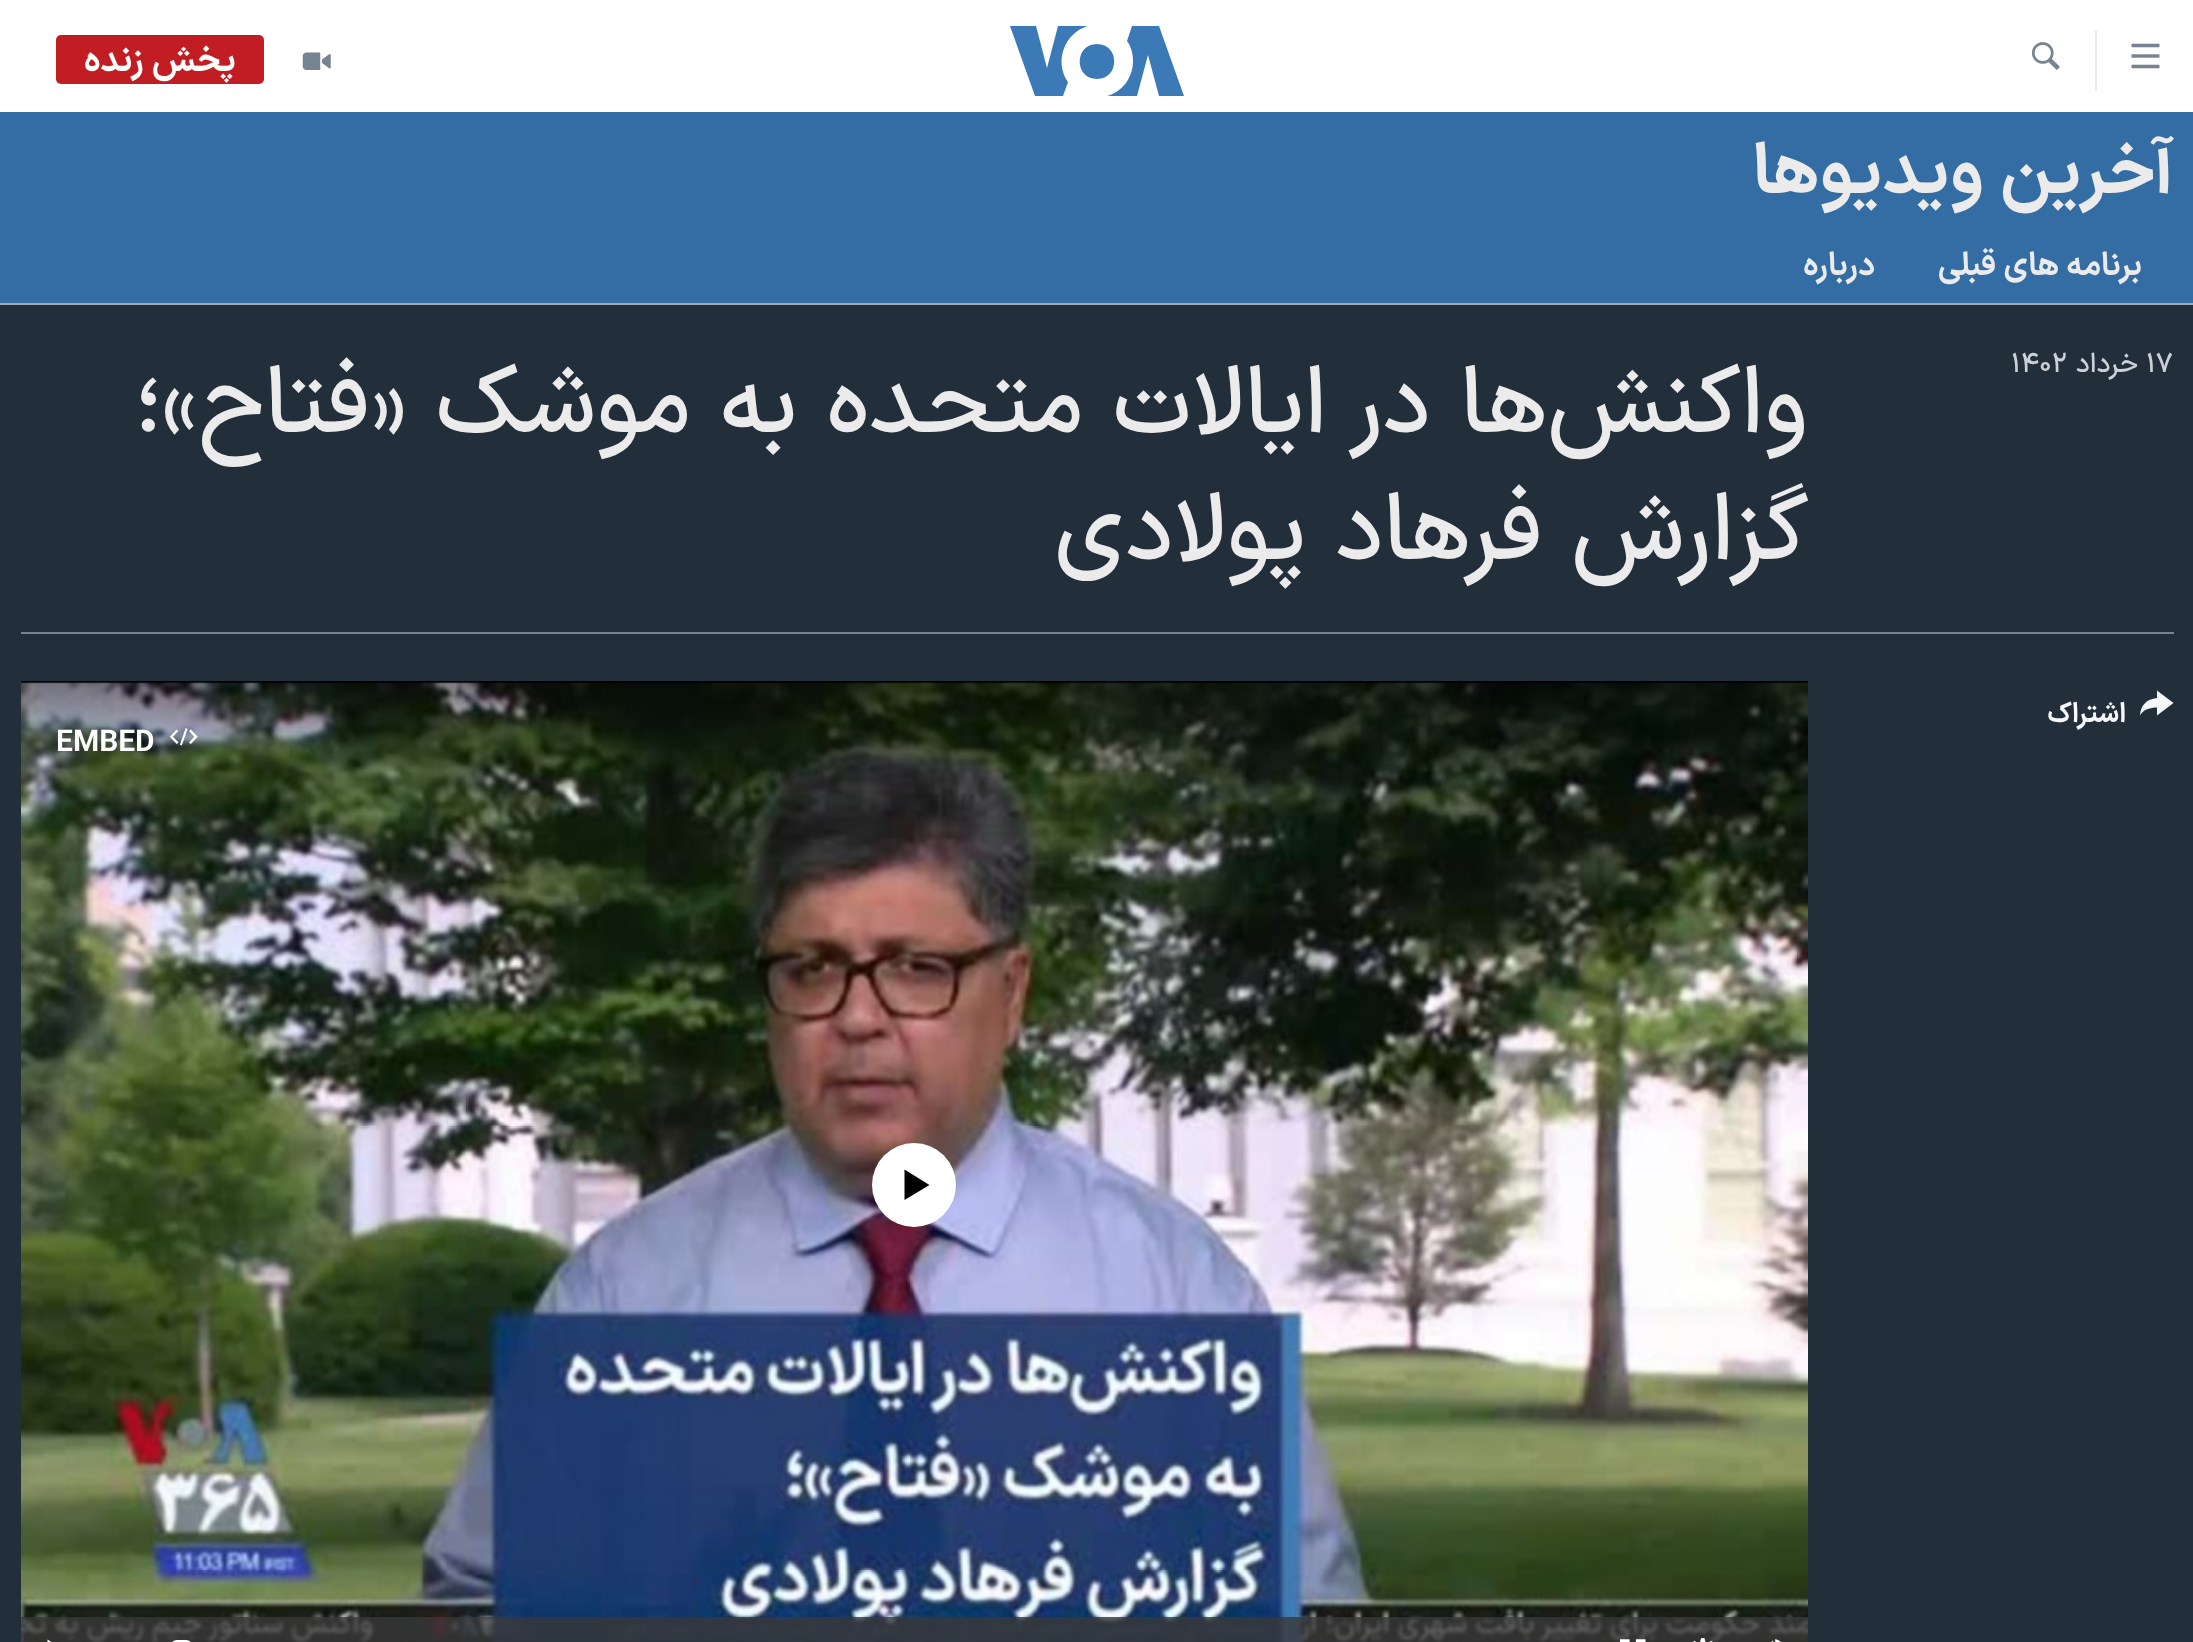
async function draw(canvas) {
  canvas.width = 2193
  canvas.height = 1642
  const ctx = canvas.getContext('2d')
  ctx.miterLimit = 4
  ctx.fontKerning = 'normal'
  async function loadImage(src) {
    const img = new Image()
    img.src = src
    await img.decode()
    return img
  }
  let gradient

  ctx.fillStyle = '#fff'
  ctx.fillRect(0, 0, 2193, 1642)
  ctx.drawImage(await loadImage('image0.png'), 2131, 43, 29, 26)
  ctx.fillStyle = '#ebebeb'
  ctx.fillRect(2095, 30, 2, 61)
  ctx.drawImage(await loadImage('image1.png'), 2031, 42, 29, 28)
  ctx.fillStyle = '#3b79b7'
  ctx.beginPath()
  ctx.moveTo(1068, 82)
  ctx.lineTo(1063, 96)
  ctx.lineTo(1035, 96)
  ctx.lineTo(1010, 26)
  ctx.lineTo(1036, 26)
  ctx.lineTo(1047, 68)
  ctx.lineTo(1058, 26)
  ctx.lineTo(1088, 26)
  ctx.bezierCurveTo(1064, 33, 1054, 62, 1068, 82)
  ctx.closePath()
  ctx.moveTo(1097, 44)
  ctx.bezierCurveTo(1074, 44, 1074, 79, 1097, 79)
  ctx.bezierCurveTo(1120, 79, 1120, 44, 1097, 44)
  ctx.closePath()
  ctx.moveTo(1133, 61)
  ctx.bezierCurveTo(1133, 78, 1122, 92, 1107, 96)
  ctx.lineTo(1137, 96)
  ctx.lineTo(1148, 55)
  ctx.lineTo(1159, 96)
  ctx.lineTo(1184, 96)
  ctx.lineTo(1159, 26)
  ctx.lineTo(1132, 26)
  ctx.lineTo(1127, 41)
  ctx.bezierCurveTo(1131, 46, 1133, 54, 1133, 61)
  ctx.closePath()
  ctx.fill()
  ctx.drawImage(await loadImage('image2.png'), 302, 52, 29, 18)
  ctx.fillStyle = '#c11d22'
  ctx.beginPath()
  ctx.roundRect(56, 35, 208, 49, 5)
  ctx.fill()
  ctx.direction = 'rtl'
  ctx.font = 'bold 35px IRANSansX'
  ctx.fillStyle = '#fff'
  ctx.fillText('پخش زنده', 236, 71)
  ctx.fillStyle = '#346ca4'
  ctx.fillRect(0, 112, 2193, 191)
  ctx.font = 'bold 70px IRANSansX'
  ctx.fillStyle = '#ebebeb'
  ctx.fillText('آخرین ویدیوها', 2174, 193)
  ctx.font = 'bold 32.25px IRANSansX'
  ctx.fillText('برنامه های قبلی', 2142, 275)
  ctx.fillText('درباره', 1875, 275)
  ctx.fillStyle = '#222f3a'
  ctx.fillRect(0, 305, 2193, 1337)
  ctx.fillStyle = '#a1aab4'
  ctx.fillRect(0, 303, 2193, 2)
  ctx.direction = 'ltr'
  ctx.font = '500 27.5px IRANSansX'
  ctx.fillStyle = '#cbd1d6'
  ctx.fillText('۱۷', 2146, 372)
  ctx.direction = 'rtl'
  ctx.fillText('خرداد', 2138, 372)
  ctx.direction = 'ltr'
  ctx.fillText('۱۴۰۲', 2011, 372)
  ctx.direction = 'rtl'
  ctx.font = '500 94.5px IRANSansX'
  ctx.fillStyle = '#ebebeb'
  ctx.fillText('واکنش‌ها در ایالات متحده به موشک «فتاح»؛', 1808, 432)
  ctx.fillText('گزارش فرهاد پولادی', 1808, 559)
  ctx.fillStyle = '#768492'
  ctx.fillRect(21, 632, 2153, 2)
  ctx.fillStyle = '#f6f7f8'
  ctx.beginPath()
  ctx.moveTo(2140, 715.5)
  ctx.bezierCurveTo(2140.5, 705.5, 2146.5, 699, 2157, 698)
  ctx.lineTo(2157, 690.5)
  ctx.lineTo(2173.5, 703)
  ctx.lineTo(2157, 715.5)
  ctx.lineTo(2157, 707.5)
  ctx.bezierCurveTo(2150.5, 707.5, 2143, 709.5, 2140, 715.5)
  ctx.closePath()
  ctx.fill()
  ctx.font = 'bold 27.5px IRANSansX'
  ctx.fillText('اشتراک', 2126, 722)
  ctx.fillStyle = '#000'
  ctx.fillRect(21, 681, 1787, 3)
  ctx.drawImage(await loadImage('image3.png'), 21, 682, 1787, 960)
  gradient = ctx.createLinearGradient(914, 681, 914, 803)
  gradient.addColorStop(0, '#00000080')
  gradient.addColorStop(1, '#00000000')
  ctx.fillStyle = gradient
  ctx.fillRect(21, 682, 1787, 116)
  ctx.drawImage(await loadImage('image4.png'), 169, 728, 29, 18)
  ctx.direction = 'ltr'
  ctx.font = 'bold 30px IRANSansX'
  ctx.fillStyle = '#fff'
  ctx.fillText('EMBED', 56, 751)
  ctx.beginPath()
  ctx.arc(914, 1185, 42, 0, 2 * Math.PI)
  ctx.fill()
  ctx.fillStyle = '#000'
  ctx.beginPath()
  ctx.moveTo(904.5, 1200)
  ctx.lineTo(929.5, 1185)
  ctx.lineTo(904.5, 1169.5)
  ctx.closePath()
  ctx.fill()
  ctx.fillStyle = '#383838cc'
  ctx.fillRect(21, 1617, 1787, 25)
  ctx.drawImage(await loadImage('image5.png'), 1771, 1639, 10, 3)
  ctx.drawImage(await loadImage('image6.png'), 1693, 1638, 20, 4)
  ctx.drawImage(await loadImage('image7.png'), 1620, 1639, 26, 3)
  ctx.fillStyle = '#414144'
  ctx.filter = 'blur(2.5px)'
  ctx.beginPath()
  ctx.roundRect(170, 1640, 23, 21, 11.5)
  ctx.fill()
  ctx.filter = 'none'
  ctx.fillStyle = '#fff'
  ctx.beginPath()
  ctx.roundRect(170, 1640, 23, 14, 11.5)
  ctx.fill()
  ctx.beginPath()
  ctx.moveTo(47.5, 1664)
  ctx.lineTo(67.5, 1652)
  ctx.lineTo(47.5, 1639.5)
  ctx.closePath()
  ctx.fill()
}

draw(document.querySelector('canvas'))
